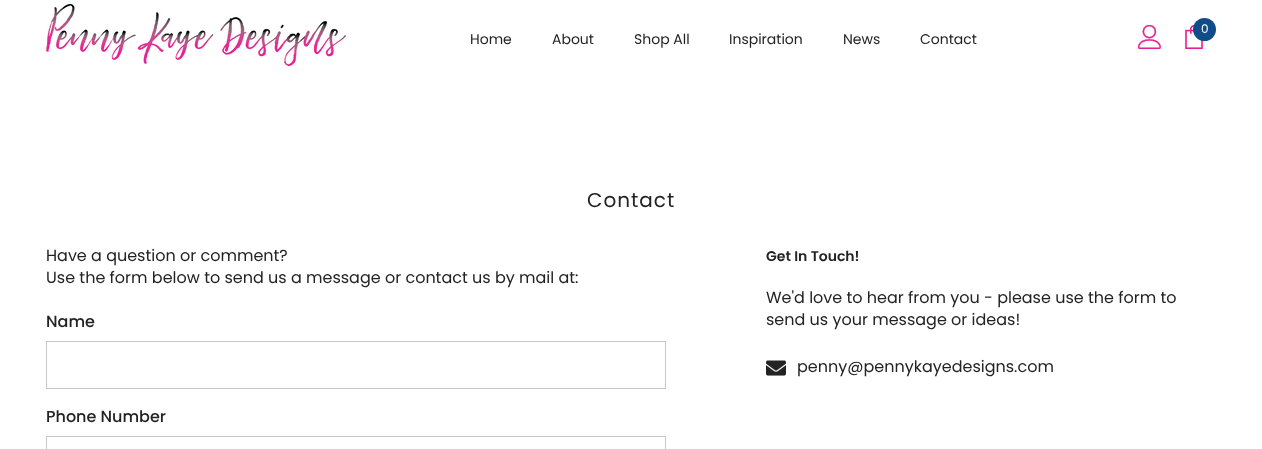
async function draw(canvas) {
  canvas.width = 1262
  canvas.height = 449
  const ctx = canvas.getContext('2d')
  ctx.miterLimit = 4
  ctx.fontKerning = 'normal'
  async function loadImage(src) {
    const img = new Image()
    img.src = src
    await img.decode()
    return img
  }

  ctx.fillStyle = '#fff'
  ctx.fillRect(0, 0, 1262, 449)
  ctx.drawImage(await loadImage('image0.png'), 46, 4, 300, 62)
  ctx.drawImage(await loadImage('image1.png'), 1138, 25, 23, 24)
  ctx.drawImage(await loadImage('image2.png'), 1185, 25, 18, 24)
  ctx.fillStyle = '#104c89'
  ctx.beginPath()
  ctx.arc(1204.5, 29.5, 11.5, 0, 2 * Math.PI)
  ctx.fill()
  ctx.font = '12px Poppins'
  ctx.fillStyle = '#fff'
  ctx.fillText('0', 1201, 33)
  ctx.font = '14px Poppins'
  ctx.fillStyle = '#232323'
  ctx.fillText('Home', 470, 44)
  ctx.fillText('About', 552, 44)
  ctx.fillText('Shop All', 634, 44)
  ctx.fillText('Inspiration', 729, 44)
  ctx.fillText('News', 843, 44)
  ctx.fillText('Contact', 920, 44)
  ctx.letterSpacing = '1px'
  ctx.font = '20px Poppins'
  ctx.fillText('Contact', 587, 207)
  ctx.letterSpacing = '0px'
  ctx.font = '16px Poppins'
  ctx.fillText('Have a question or comment?', 46, 261)
  ctx.fillText('Use the form below to send us a message or contact us by mail at:', 46, 283)
  ctx.font = '500 16px Poppins'
  ctx.fillText('Name', 46, 327)
  ctx.strokeStyle = '#c7c7c7'
  ctx.strokeRect(46.5, 341.5, 619, 47)
  ctx.fillText('Phone Number', 46, 422)
  ctx.strokeRect(46.5, 436.5, 619, 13)
  ctx.font = '600 14px Poppins'
  ctx.fillText('Get In Touch!', 766, 261)
  ctx.font = '16px Poppins'
  ctx.fillText('We\'d love to hear from you - please use the form to', 766, 303)
  ctx.fillText('send us your message or ideas!', 766, 325)
  ctx.drawImage(await loadImage('image3.png'), 766, 360, 20, 16)
  ctx.fillText('penny@pennykayedesigns.com', 797, 372)
}

draw(document.querySelector('canvas'))
